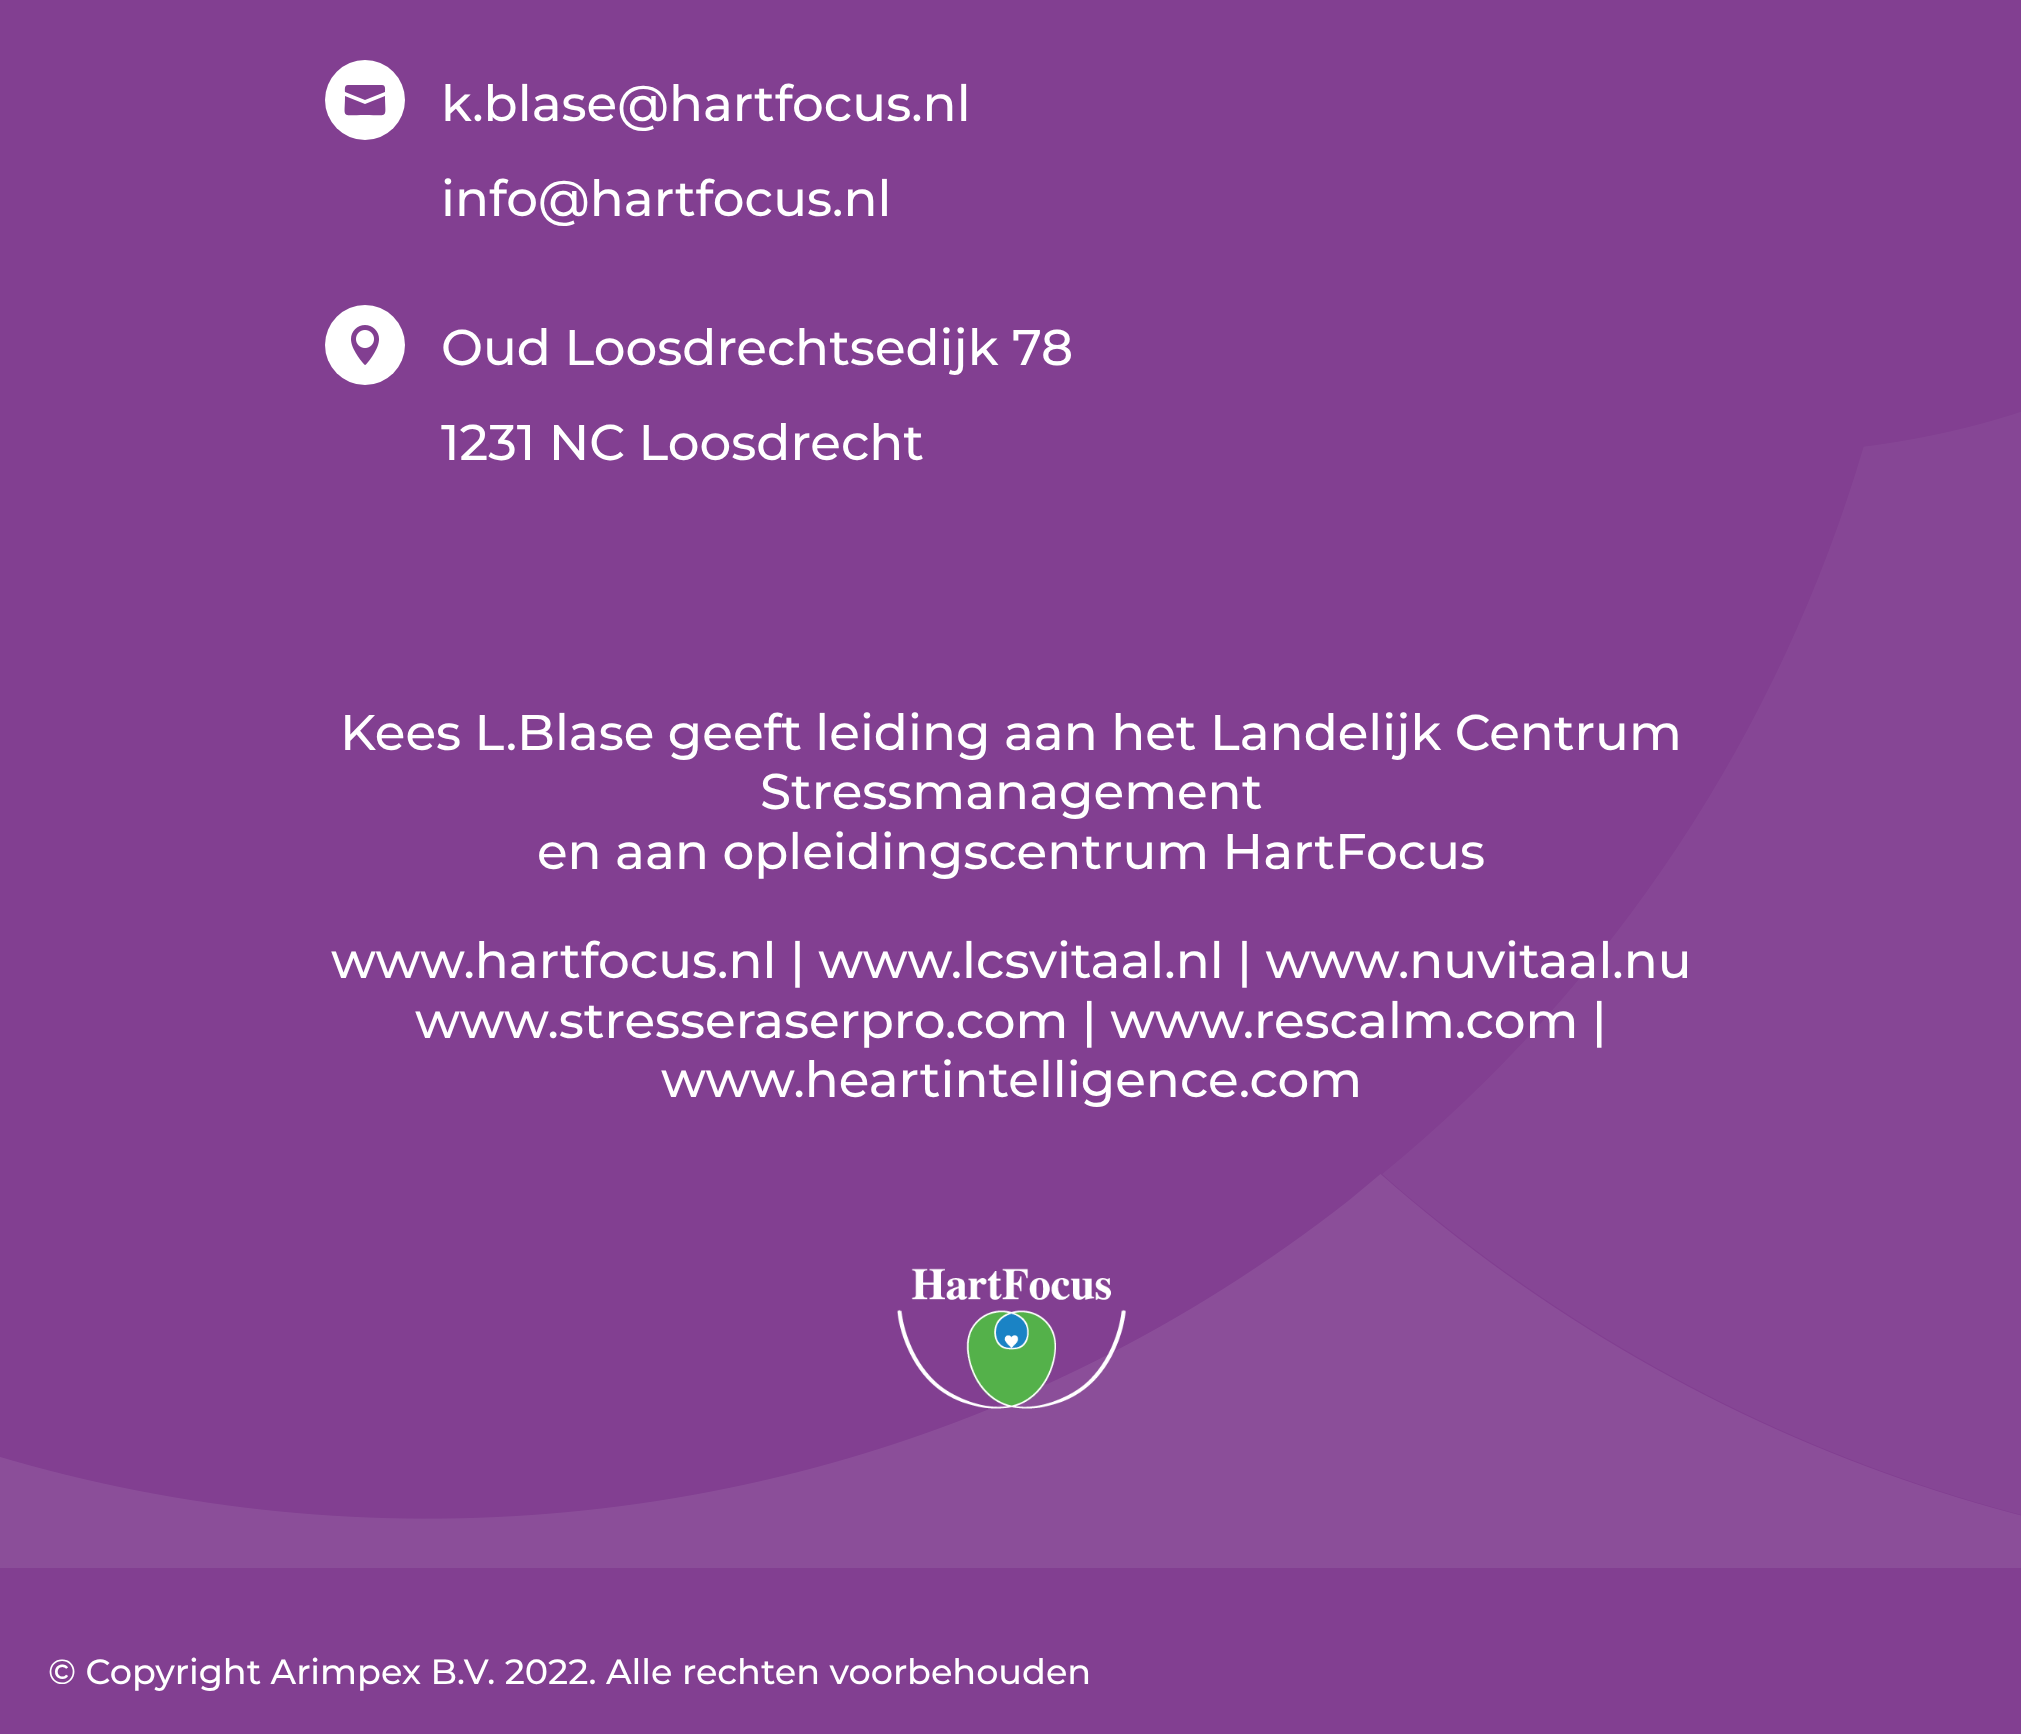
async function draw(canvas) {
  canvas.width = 2021
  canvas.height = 1734
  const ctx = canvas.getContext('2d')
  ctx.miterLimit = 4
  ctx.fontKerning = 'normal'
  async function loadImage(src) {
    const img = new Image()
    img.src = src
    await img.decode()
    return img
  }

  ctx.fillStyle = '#823f91'
  ctx.fillRect(0, 0, 2021, 1734)
  ctx.fillStyle = '#fff'
  ctx.beginPath()
  ctx.arc(365, 100, 40, 0, 2 * Math.PI)
  ctx.fill()
  ctx.fillStyle = '#823f91'
  ctx.beginPath()
  ctx.moveTo(382, 85)
  ctx.lineTo(348, 85)
  ctx.bezierCurveTo(344, 85, 345, 90, 345, 92)
  ctx.lineTo(365, 100)
  ctx.lineTo(385, 92)
  ctx.bezierCurveTo(385, 90, 386, 85, 382, 85)
  ctx.closePath()
  ctx.moveTo(345, 96)
  ctx.bezierCurveTo(345, 119, 340, 115, 365, 115)
  ctx.bezierCurveTo(390, 115, 385, 119, 385, 96)
  ctx.lineTo(365, 104)
  ctx.closePath()
  ctx.fill()
  ctx.font = '500 50px Montserrat'
  ctx.fillStyle = '#fff'
  ctx.fillText('k.blase@hartfocus.nl', 441, 121)
  ctx.fillText('info@hartfocus.nl', 441, 216)
  ctx.beginPath()
  ctx.arc(365, 345, 40, 0, 2 * Math.PI)
  ctx.fill()
  ctx.drawImage(await loadImage('image0.png'), 351, 325, 28, 40)
  ctx.fillText('Oud Loosdrechtsedijk 78', 441, 365)
  ctx.drawImage(await loadImage('image1.png'), 0, 412, 2021, 1156)
  ctx.fillText('1231 NC Loosdrecht', 441, 460)
  ctx.fillText('Kees L.Blase geeft leiding aan het Landelijk Centrum', 340, 750)
  ctx.fillText('Stressmanagement', 760, 809)
  ctx.fillText('en aan opleidingscentrum HartFocus', 537, 869)
  ctx.fillText('www.hartfocus.nl | www.lcsvitaal.nl | www.nuvitaal.nu', 331, 978)
  ctx.fillText('www.stresseraserpro.com | www.rescalm.com |', 415, 1038)
  ctx.fillText('www.heartintelligence.com', 661, 1097)
  ctx.drawImage(await loadImage('image2.png'), 897, 1268, 229, 141)
  ctx.font = '500 35px Montserrat'
  ctx.fillText('© Copyright Arimpex B.V. 2022. Alle rechten voorbehouden', 48, 1684)
}

draw(document.querySelector('canvas'))
